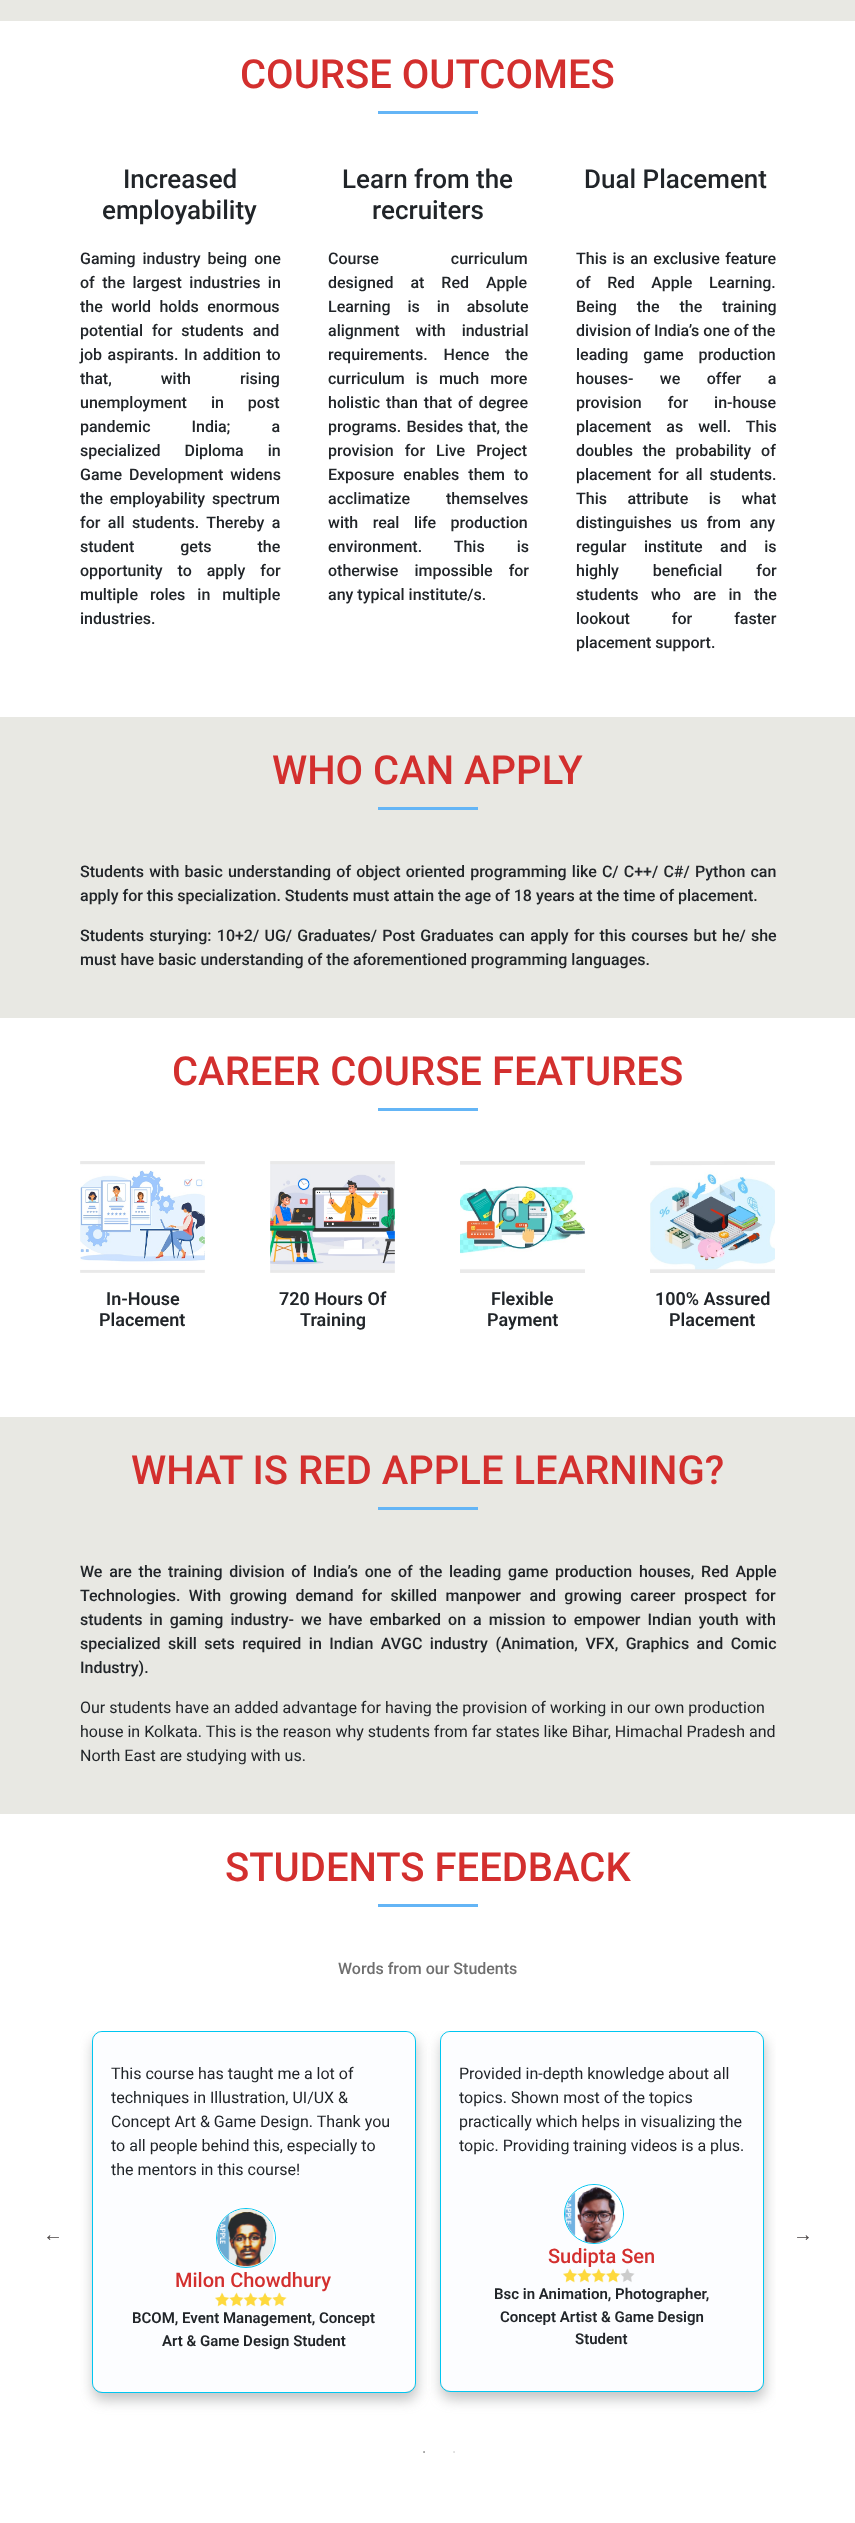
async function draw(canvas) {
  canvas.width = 855
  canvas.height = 2523
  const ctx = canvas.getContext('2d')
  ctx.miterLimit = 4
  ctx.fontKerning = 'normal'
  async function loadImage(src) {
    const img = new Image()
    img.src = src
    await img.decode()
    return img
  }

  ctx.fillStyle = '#fff'
  ctx.fillRect(0, 0, 855, 2523)
  ctx.fillStyle = '#e8e8e3'
  ctx.fillRect(0, 0, 855, 21)
  ctx.font = '500 40px Roboto'
  ctx.fillStyle = '#d32f2e'
  ctx.fillText('COURSE OUTCOMES', 240, 88)
  ctx.fillStyle = '#64b5f6'
  ctx.fillRect(378, 111, 100, 3)
  ctx.font = '500 26px Roboto'
  ctx.fillStyle = '#212529'
  ctx.fillText('Increased', 123, 188)
  ctx.fillText('employability', 102, 219)
  ctx.wordSpacing = '3px'
  ctx.font = '500 16px Roboto'
  ctx.fillText('Gaming industry being one', 80, 264)
  ctx.wordSpacing = '3.5px'
  ctx.fillText('of the largest industries in', 80, 288)
  ctx.wordSpacing = '4.5px'
  ctx.fillText('the world holds enormous', 80, 312)
  ctx.wordSpacing = '5px'
  ctx.fillText('potential for students and', 80, 336)
  ctx.wordSpacing = '1.5px'
  ctx.fillText('job aspirants. In addition to', 80, 360)
  ctx.wordSpacing = '45px'
  ctx.fillText('that, with rising', 80, 384)
  ctx.wordSpacing = '20px'
  ctx.fillText('unemployment in post', 80, 408)
  ctx.wordSpacing = '37px'
  ctx.fillText('pandemic India; a', 80, 432)
  ctx.wordSpacing = '20px'
  ctx.fillText('specialized Diploma in', 80, 456)
  ctx.wordSpacing = '3px'
  ctx.fillText('Game Development widens', 80, 480)
  ctx.fillText('the employability spectrum', 80, 504)
  ctx.wordSpacing = '3.5px'
  ctx.fillText('for all students. Thereby a', 80, 528)
  ctx.wordSpacing = '42px'
  ctx.fillText('student gets the', 80, 552)
  ctx.wordSpacing = '11px'
  ctx.fillText('opportunity to apply for', 80, 576)
  ctx.wordSpacing = '8px'
  ctx.fillText('multiple roles in multiple', 80, 600)
  ctx.wordSpacing = '0px'
  ctx.fillText('industries.', 80, 624)
  ctx.font = '500 26px Roboto'
  ctx.fillText('Learn from the', 342, 188)
  ctx.fillText('recruiters', 372, 219)
  ctx.wordSpacing = '68px'
  ctx.font = '500 16px Roboto'
  ctx.fillText('Course curriculum', 328, 264)
  ctx.wordSpacing = '13px'
  ctx.fillText('designed at Red Apple', 328, 288)
  ctx.fillText('Learning is in absolute', 328, 312)
  ctx.wordSpacing = '12px'
  ctx.fillText('alignment with industrial', 328, 336)
  ctx.fillText('requirements. Hence the', 328, 360)
  ctx.wordSpacing = '7px'
  ctx.fillText('curriculum is much more', 328, 384)
  ctx.wordSpacing = '2px'
  ctx.fillText('holistic than that of degree', 328, 408)
  ctx.wordSpacing = '1.2px'
  ctx.fillText('programs. Besides that, the', 328, 432)
  ctx.wordSpacing = '7px'
  ctx.fillText('provision for Live Project', 328, 456)
  ctx.wordSpacing = '5px'
  ctx.fillText('Exposure enables them to', 328, 480)
  ctx.wordSpacing = '32px'
  ctx.fillText('acclimatize themselves', 328, 504)
  ctx.wordSpacing = '10.5px'
  ctx.fillText('with real life production', 328, 528)
  ctx.wordSpacing = '28px'
  ctx.fillText('environment. This is', 328, 552)
  ctx.wordSpacing = '12px'
  ctx.fillText('otherwise impossible for', 328, 576)
  ctx.wordSpacing = '0px'
  ctx.fillText('any typical institute/s.', 328, 600)
  ctx.font = '500 26px Roboto'
  ctx.fillText('Dual Placement', 584, 188)
  ctx.wordSpacing = '1.5px'
  ctx.font = '500 16px Roboto'
  ctx.fillText('This is an exclusive feature', 576, 264)
  ctx.wordSpacing = '12.5px'
  ctx.fillText('of Red Apple Learning.', 576, 288)
  ctx.wordSpacing = '16px'
  ctx.fillText('Being the the training', 576, 312)
  ctx.wordSpacing = '0px'
  ctx.fillText('division of India’s one of the', 576, 336)
  ctx.wordSpacing = '11px'
  ctx.fillText('leading game production', 576, 360)
  ctx.wordSpacing = '22.5px'
  ctx.fillText('houses- we offer a', 576, 384)
  ctx.wordSpacing = '22px'
  ctx.fillText('provision for in-house', 576, 408)
  ctx.wordSpacing = '11px'
  ctx.fillText('placement as well. This', 576, 432)
  ctx.wordSpacing = '6px'
  ctx.fillText('doubles the probability of', 576, 456)
  ctx.wordSpacing = '3px'
  ctx.fillText('placement for all students.', 576, 480)
  ctx.wordSpacing = '16.5px'
  ctx.fillText('This attribute is what', 576, 504)
  ctx.wordSpacing = '5px'
  ctx.fillText('distinguishes us from any', 576, 528)
  ctx.wordSpacing = '13.5px'
  ctx.fillText('regular institute and is', 576, 552)
  ctx.wordSpacing = '30px'
  ctx.fillText('highly beneficial for', 576, 576)
  ctx.wordSpacing = '8.5px'
  ctx.fillText('students who are in the', 576, 600)
  ctx.wordSpacing = '38px'
  ctx.fillText('lookout for faster', 576, 624)
  ctx.wordSpacing = '0px'
  ctx.fillText('placement support.', 576, 648)
  ctx.fillStyle = '#e8e8e3'
  ctx.fillRect(0, 717, 855, 301)
  ctx.font = '500 40px Roboto'
  ctx.fillStyle = '#d32f2e'
  ctx.fillText('WHO CAN APPLY', 272, 784)
  ctx.fillStyle = '#64b5f6'
  ctx.fillRect(378, 807, 100, 3)
  ctx.wordSpacing = '1.2px'
  ctx.font = '500 16px Roboto'
  ctx.fillStyle = '#212529'
  ctx.fillText('Students with basic understanding of object oriented programming like C/ C++/ C#/ Python can', 80, 877)
  ctx.wordSpacing = '0px'
  ctx.fillText('apply for this specialization. Students must attain the age of 18 years at the time of placement.', 80, 901)
  ctx.wordSpacing = '1.25px'
  ctx.fillText('Students sturying: 10+2/ UG/ Graduates/ Post Graduates can apply for this courses but he/ she', 80, 941)
  ctx.wordSpacing = '0px'
  ctx.fillText('must have basic understanding of the aforementioned programming languages.', 80, 965)
  ctx.font = '500 40px Roboto'
  ctx.fillStyle = '#d32f2e'
  ctx.fillText('CAREER COURSE FEATURES', 172, 1085)
  ctx.fillStyle = '#64b5f6'
  ctx.fillRect(378, 1108, 100, 3)
  ctx.drawImage(await loadImage('image0.png'), 80, 1161, 125, 112)
  ctx.font = '600 18px Roboto'
  ctx.fillStyle = '#212529'
  ctx.fillText('In-House', 106, 1305)
  ctx.fillText('Placement', 99, 1326)
  ctx.drawImage(await loadImage('image1.png'), 270, 1161, 125, 112)
  ctx.fillText('720 Hours Of', 279, 1305)
  ctx.fillText('Training', 300, 1326)
  ctx.drawImage(await loadImage('image2.png'), 460, 1161, 125, 112)
  ctx.fillText('Flexible', 491, 1305)
  ctx.fillText('Payment', 487, 1326)
  ctx.drawImage(await loadImage('image3.png'), 650, 1161, 125, 112)
  ctx.fillText('100% Assured', 655, 1305)
  ctx.fillText('Placement', 669, 1326)
  ctx.fillStyle = '#e8e8e3'
  ctx.fillRect(0, 1417, 855, 397)
  ctx.font = '500 40px Roboto'
  ctx.fillStyle = '#d32f2e'
  ctx.fillText('WHAT IS RED APPLE LEARNING?', 131, 1484)
  ctx.fillStyle = '#64b5f6'
  ctx.fillRect(378, 1507, 100, 3)
  ctx.wordSpacing = '2.75px'
  ctx.font = '500 16px Roboto'
  ctx.fillStyle = '#212529'
  ctx.fillText('We are the training division of India’s one of the leading game production houses, Red Apple', 80, 1577)
  ctx.wordSpacing = '4.4px'
  ctx.fillText('Technologies. With growing demand for skilled manpower and growing career prospect for', 80, 1601)
  ctx.wordSpacing = '3.1px'
  ctx.fillText('students in gaming industry- we have embarked on a mission to empower Indian youth with', 80, 1625)
  ctx.wordSpacing = '3.5px'
  ctx.fillText('specialized skill sets required in Indian AVGC industry (Animation, VFX, Graphics and Comic', 80, 1649)
  ctx.wordSpacing = '0px'
  ctx.fillText('Industry).', 80, 1673)
  ctx.font = '16px Roboto'
  ctx.fillText('Our students have an added advantage for having the provision of working in our own production', 80, 1713)
  ctx.fillText('house in Kolkata. This is the reason why students from far states like Bihar, Himachal Pradesh and', 80, 1737)
  ctx.fillText('North East are studying with us.', 80, 1761)
  ctx.font = '500 40px Roboto'
  ctx.fillStyle = '#d32f2e'
  ctx.fillText('STUDENTS FEEDBACK', 225, 1881)
  ctx.fillStyle = '#64b5f6'
  ctx.fillRect(378, 1904, 100, 3)
  ctx.font = '500 16px Roboto'
  ctx.fillStyle = '#6f6f6f'
  ctx.fillText('Words from our Students', 338, 1974)
  ctx.font = '20px Liberation Serif'
  ctx.fillStyle = '#4a4545'
  ctx.fillText('←', 43, 2241)
  ctx.save()
  ctx.beginPath()
  ctx.rect(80, 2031, 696, 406)
  ctx.clip()
  ctx.fillStyle = '#7e808078'
  ctx.filter = 'blur(6.5px)'
  ctx.beginPath()
  ctx.roundRect(93, 2038, 324, 362, 10)
  ctx.fill()
  ctx.filter = 'none'
  ctx.restore()
  ctx.beginPath()
  ctx.roundRect(92.5, 2031.5, 323, 361, 9.5)
  ctx.strokeStyle = '#00c6f1'
  ctx.stroke()
  ctx.fillStyle = '#fcfdff'
  ctx.beginPath()
  ctx.roundRect(93, 2032, 322, 360, 10)
  ctx.fill()
  ctx.font = '16px Roboto'
  ctx.fillStyle = '#212529'
  ctx.fillText('This course has taught me a lot of', 111, 2079)
  ctx.fillText('techniques in Illustration, UI/UX &', 111, 2103)
  ctx.fillText('Concept Art & Game Design. Thank you', 111, 2127)
  ctx.fillText('to all people behind this, especially to', 111, 2151)
  ctx.fillText('the mentors in this course!', 111, 2175)
  ctx.beginPath()
  ctx.arc(246, 2238, 29.5, 0, 2 * Math.PI)
  ctx.stroke()
  ctx.drawImage(await loadImage('image4.png'), 217, 2209, 58, 58)
  ctx.font = '500 20px Roboto'
  ctx.fillStyle = '#d32f2e'
  ctx.fillText('Milon Chowdhury', 175, 2287)
  ctx.drawImage(await loadImage('image5.png'), 215, 2292, 72, 15)
  ctx.font = '600 15px Roboto'
  ctx.fillStyle = '#212529'
  ctx.fillText('BCOM, Event Management, Concept', 132, 2323)
  ctx.fillText('Art & Game Design Student', 162, 2346)
  ctx.save()
  ctx.beginPath()
  ctx.rect(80, 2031, 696, 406)
  ctx.clip()
  ctx.fillStyle = '#7e808078'
  ctx.filter = 'blur(6.5px)'
  ctx.beginPath()
  ctx.roundRect(441, 2038, 324, 361, 10)
  ctx.fill()
  ctx.filter = 'none'
  ctx.restore()
  ctx.beginPath()
  ctx.roundRect(440.5, 2031.5, 323, 360, 9.5)
  ctx.stroke()
  ctx.fillStyle = '#fcfdff'
  ctx.beginPath()
  ctx.roundRect(441, 2032, 322, 359, 10)
  ctx.fill()
  ctx.font = '16px Roboto'
  ctx.fillStyle = '#212529'
  ctx.fillText('Provided in-depth knowledge about all', 459, 2079)
  ctx.fillText('topics. Shown most of the topics', 459, 2103)
  ctx.fillText('practically which helps in visualizing the', 459, 2127)
  ctx.fillText('topic. Providing training videos is a plus.', 459, 2151)
  ctx.beginPath()
  ctx.arc(594, 2214, 29.5, 0, 2 * Math.PI)
  ctx.stroke()
  ctx.drawImage(await loadImage('image6.png'), 565, 2185, 58, 58)
  ctx.font = '500 20px Roboto'
  ctx.fillStyle = '#d32f2e'
  ctx.fillText('Sudipta Sen', 548, 2263)
  ctx.drawImage(await loadImage('image7.png'), 563, 2268, 72, 15)
  ctx.font = '600 15px Roboto'
  ctx.fillStyle = '#212529'
  ctx.fillText('Bsc in Animation, Photographer,', 494, 2299)
  ctx.fillText('Concept Artist & Game Design', 500, 2322)
  ctx.fillText('Student', 575, 2344)
  ctx.font = '20px Liberation Serif'
  ctx.fillStyle = '#4a4545'
  ctx.fillText('→', 793, 2241)
  ctx.font = '6px Liberation Serif'
  ctx.fillStyle = '#404040'
  ctx.fillText('•', 423, 2454)
  ctx.fillStyle = '#bfbfbf'
  ctx.fillText('•', 453, 2454)
}

draw(document.querySelector('canvas'))
